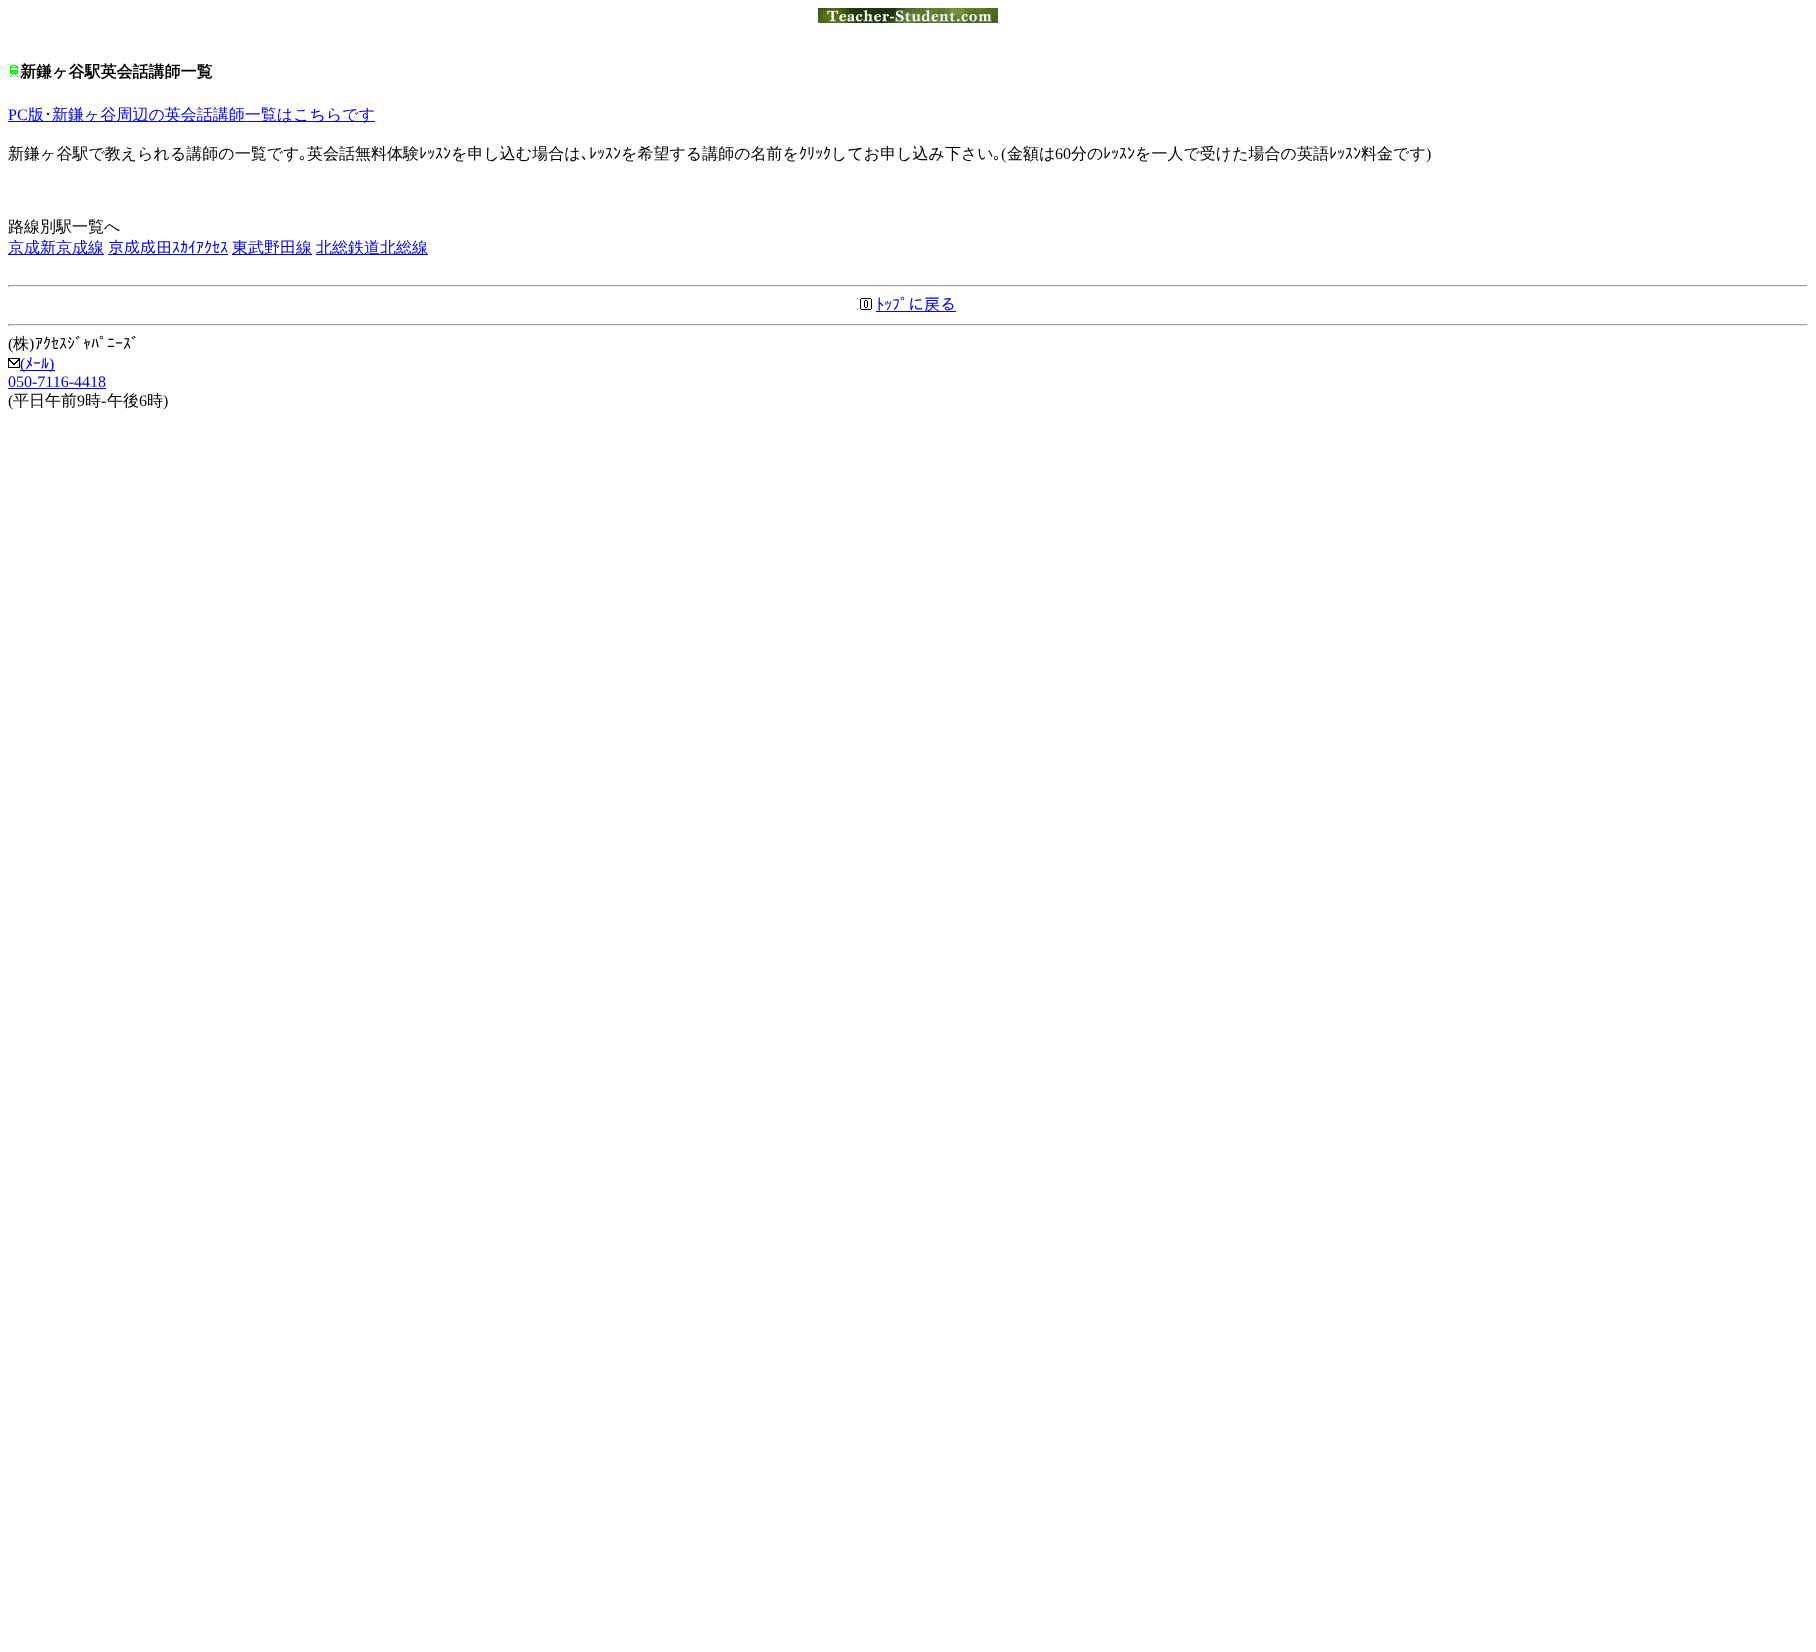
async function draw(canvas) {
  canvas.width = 1816
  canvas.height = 1652
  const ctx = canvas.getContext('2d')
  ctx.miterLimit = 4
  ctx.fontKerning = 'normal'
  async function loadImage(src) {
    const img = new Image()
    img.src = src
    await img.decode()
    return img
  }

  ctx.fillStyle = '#fff'
  ctx.fillRect(0, 0, 1816, 1652)
  ctx.drawImage(await loadImage('image0.png'), 818, 8, 180, 15)
  ctx.drawImage(await loadImage('image1.png'), 10, 65, 8, 12)
  ctx.font = 'bold 16px WenQuanYi Zen Hei'
  ctx.fillStyle = '#000'
  ctx.fillText('新鎌ヶ谷駅英会話講師一覧', 20, 77)
  ctx.font = '16px Liberation Serif'
  ctx.fillStyle = '#00e'
  ctx.fillText('PC', 8, 120)
  ctx.fillRect(8, 121, 367, 1)
  ctx.font = '500 16px WenQuanYi Zen Hei'
  ctx.fillText('版', 28, 120)
  ctx.font = '16px IPAGothic'
  ctx.fillText('･', 44, 120)
  ctx.font = '500 16px WenQuanYi Zen Hei'
  ctx.fillText('新鎌ヶ谷周辺の英会話講師一覧はこちらです', 52, 120)
  ctx.fillStyle = '#000'
  ctx.fillText('新鎌ヶ谷駅で教えられる講師の一覧です', 8, 159)
  ctx.font = '16px IPAGothic'
  ctx.fillText('｡', 299, 159)
  ctx.font = '500 16px WenQuanYi Zen Hei'
  ctx.fillText('英会話無料体験', 307, 159)
  ctx.font = '16px IPAGothic'
  ctx.fillText('ﾚｯｽﾝ', 419, 159)
  ctx.font = '500 16px WenQuanYi Zen Hei'
  ctx.fillText('を申し込む場合は', 451, 159)
  ctx.font = '16px IPAGothic'
  ctx.fillText('､ﾚｯｽﾝ', 581, 159)
  ctx.font = '500 16px WenQuanYi Zen Hei'
  ctx.fillText('を希望する講師の名前を', 621, 159)
  ctx.font = '16px IPAGothic'
  ctx.fillText('ｸﾘｯｸ', 799, 159)
  ctx.font = '500 16px WenQuanYi Zen Hei'
  ctx.fillText('してお申し込み下さい', 831, 159)
  ctx.font = '16px IPAGothic'
  ctx.fillText('｡', 993, 159)
  ctx.font = '16px Liberation Serif'
  ctx.fillText('(', 1001, 159)
  ctx.font = '500 16px WenQuanYi Zen Hei'
  ctx.fillText('金額は', 1007, 159)
  ctx.font = '16px Liberation Serif'
  ctx.fillText('60', 1055, 159)
  ctx.font = '500 16px WenQuanYi Zen Hei'
  ctx.fillText('分の', 1071, 159)
  ctx.font = '16px IPAGothic'
  ctx.fillText('ﾚｯｽﾝ', 1103, 159)
  ctx.font = '500 16px WenQuanYi Zen Hei'
  ctx.fillText('を一人で受けた場合の英語', 1135, 159)
  ctx.font = '16px IPAGothic'
  ctx.fillText('ﾚｯｽﾝ', 1329, 159)
  ctx.font = '500 16px WenQuanYi Zen Hei'
  ctx.fillText('料金です', 1361, 159)
  ctx.font = '16px Liberation Serif'
  ctx.fillText(')', 1426, 159)
  ctx.font = '500 16px WenQuanYi Zen Hei'
  ctx.fillText('路線別駅一覧へ', 8, 232)
  ctx.fillStyle = '#00e'
  ctx.fillRect(8, 254, 96, 1)
  ctx.fillText('京成新京成線', 8, 253)
  ctx.fillRect(108, 254, 120, 1)
  ctx.font = '16px IPAGothic'
  ctx.fillText('京成成田ｽｶｲｱｸｾｽ', 108, 253)
  ctx.fillRect(232, 254, 80, 1)
  ctx.font = '500 16px WenQuanYi Zen Hei'
  ctx.fillText('東武野田線', 232, 253)
  ctx.fillRect(316, 254, 112, 1)
  ctx.fillText('北総鉄道北総線', 316, 253)
  ctx.fillStyle = '#9f9f9f'
  ctx.fillRect(8, 285, 1800, 1)
  ctx.fillStyle = '#eee'
  ctx.fillRect(1807, 285, 1, 2)
  ctx.fillRect(8, 286, 1800, 1)
  ctx.fillStyle = '#9f9f9f'
  ctx.fillRect(8, 285, 1, 2)
  ctx.drawImage(await loadImage('image2.png'), 860, 298, 12, 12)
  ctx.fillStyle = '#00e'
  ctx.fillRect(876, 311, 80, 1)
  ctx.font = '16px IPAGothic'
  ctx.fillText('ﾄｯﾌﾟに戻る', 876, 310)
  ctx.fillStyle = '#9f9f9f'
  ctx.fillRect(8, 324, 1800, 1)
  ctx.fillStyle = '#eee'
  ctx.fillRect(1807, 324, 1, 2)
  ctx.fillRect(8, 325, 1800, 1)
  ctx.fillStyle = '#9f9f9f'
  ctx.fillRect(8, 324, 1, 2)
  ctx.font = '16px Liberation Serif'
  ctx.fillStyle = '#000'
  ctx.fillText('(', 8, 349)
  ctx.font = '500 16px WenQuanYi Zen Hei'
  ctx.fillText('株', 13, 349)
  ctx.font = '16px Liberation Serif'
  ctx.fillText(')', 29, 349)
  ctx.font = '16px IPAGothic'
  ctx.fillText('ｱｸｾｽｼﾞｬﾊﾟﾆｰｽﾞ', 35, 349)
  ctx.drawImage(await loadImage('image3.png'), 8, 358, 12, 10)
  ctx.fillStyle = '#00e'
  ctx.fillRect(20, 370, 35, 1)
  ctx.font = '16px Liberation Serif'
  ctx.fillText('(', 20, 369)
  ctx.font = '16px IPAGothic'
  ctx.fillText('ﾒｰﾙ', 25, 369)
  ctx.font = '16px Liberation Serif'
  ctx.fillText(')', 49, 369)
  ctx.fillText('050-7116-4418', 8, 387)
  ctx.fillRect(8, 388, 98, 1)
  ctx.fillStyle = '#000'
  ctx.fillText('(', 8, 406)
  ctx.font = '500 16px WenQuanYi Zen Hei'
  ctx.fillText('平日午前', 13, 406)
  ctx.font = '16px Liberation Serif'
  ctx.fillText('9', 77, 406)
  ctx.font = '500 16px WenQuanYi Zen Hei'
  ctx.fillText('時', 85, 406)
  ctx.font = '16px Liberation Serif'
  ctx.fillText('-', 101, 406)
  ctx.font = '500 16px WenQuanYi Zen Hei'
  ctx.fillText('午後', 107, 406)
  ctx.font = '16px Liberation Serif'
  ctx.fillText('6', 139, 406)
  ctx.font = '500 16px WenQuanYi Zen Hei'
  ctx.fillText('時', 147, 406)
  ctx.font = '16px Liberation Serif'
  ctx.fillText(')', 163, 406)
}

draw(document.querySelector('canvas'))
